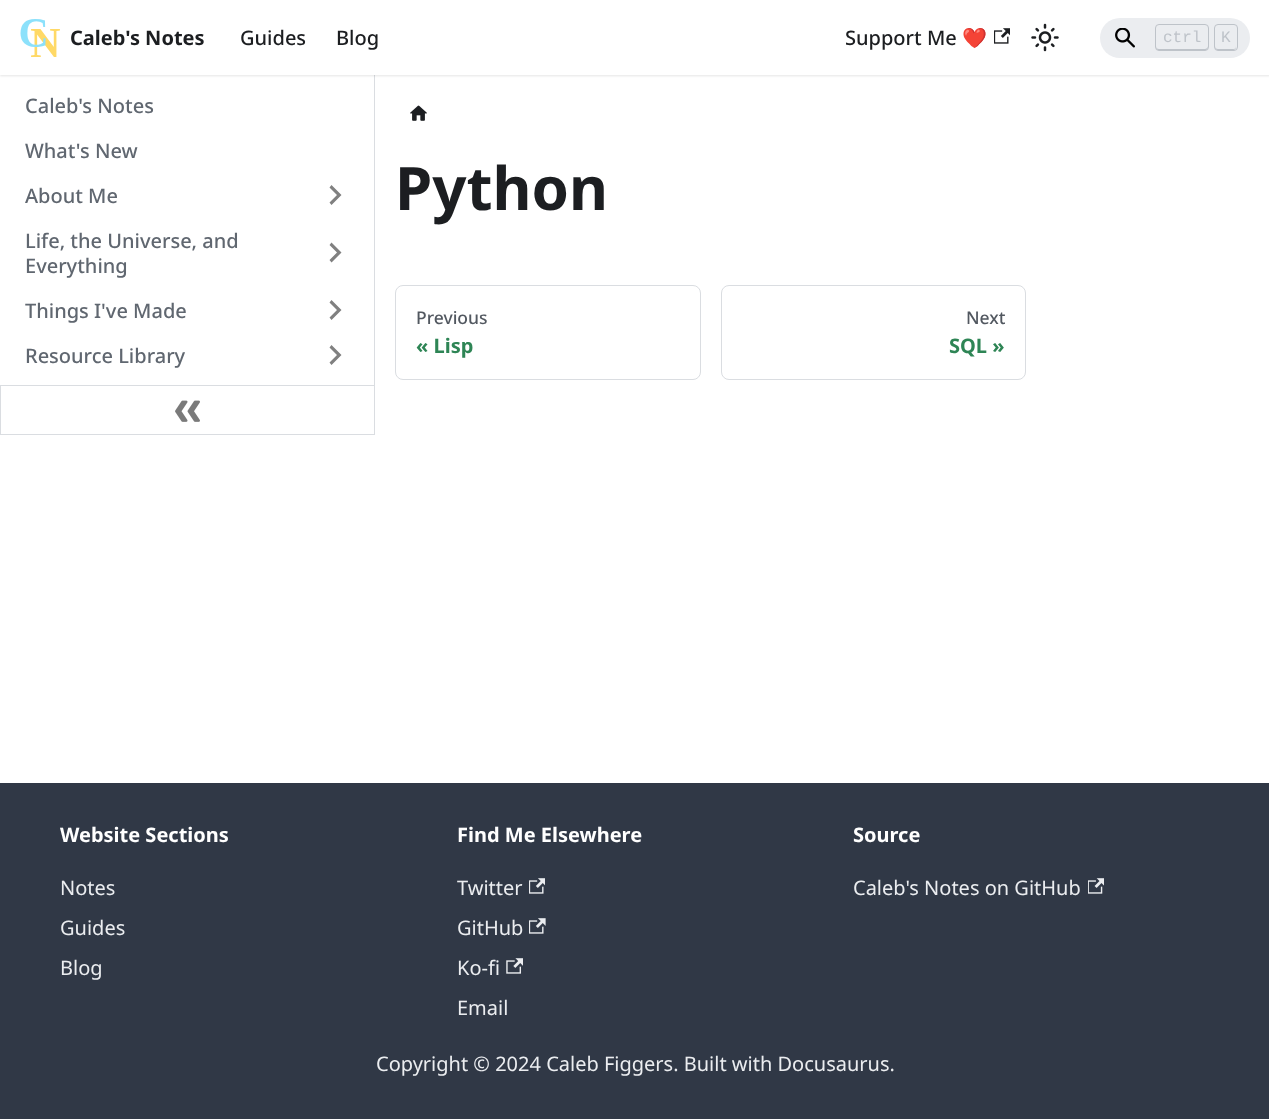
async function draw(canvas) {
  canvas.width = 1269
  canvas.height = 1119
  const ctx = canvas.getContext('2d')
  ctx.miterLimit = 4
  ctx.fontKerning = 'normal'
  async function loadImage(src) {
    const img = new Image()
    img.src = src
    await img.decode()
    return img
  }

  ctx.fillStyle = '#fff'
  ctx.fillRect(0, 0, 1269, 1119)
  ctx.fillStyle = '#dadde1'
  ctx.fillRect(374, 75, 1, 310)
  ctx.fillStyle = '#0000001a'
  ctx.filter = 'blur(1px)'
  ctx.beginPath()
  ctx.rect(0, 1, 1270, 75)
  ctx.fill()
  ctx.filter = 'none'
  ctx.fillStyle = '#fff'
  ctx.fillRect(0, 0, 1269, 75)
  ctx.drawImage(await loadImage('image0.png'), 20, 19, 40, 38)
  ctx.font = 'bold 20px Noto Sans'
  ctx.fillStyle = '#1c1e21'
  ctx.fillText('Caleb\'s Notes', 70, 45)
  ctx.font = '500 20px Noto Sans'
  ctx.fillText('Guides', 240, 45)
  ctx.fillText('Blog', 336, 45)
  ctx.fillText('Support Me', 845, 45)
  ctx.font = '20px Noto Color Emoji'
  ctx.fillText('❤️', 962, 45)
  ctx.drawImage(await loadImage('image1.png'), 994, 28, 16, 16)
  ctx.drawImage(await loadImage('image2.png'), 1031, 23, 28, 29)
  ctx.fillStyle = '#ebedf0'
  ctx.beginPath()
  ctx.roundRect(1100, 18, 150, 40, 20)
  ctx.fill()
  ctx.drawImage(await loadImage('image3.png'), 1115, 28, 20, 20)
  ctx.fillStyle = '#bec3c9'
  ctx.beginPath()
  ctx.moveTo(1156, 46)
  ctx.bezierCurveTo(1156, 52, 1161, 50, 1166, 50)
  ctx.lineTo(1198, 50)
  ctx.bezierCurveTo(1203, 50, 1208, 52, 1208, 46)
  ctx.bezierCurveTo(1208, 48, 1206, 49, 1205, 49)
  ctx.lineTo(1159, 49)
  ctx.bezierCurveTo(1157, 49, 1156, 48, 1156, 46)
  ctx.closePath()
  ctx.fill()
  ctx.beginPath()
  ctx.roundRect(1155.5, 24.5, 53, 26, 3.5)
  ctx.strokeStyle = '#bec3c9'
  ctx.stroke()
  ctx.font = '16px Liberation Mono'
  ctx.fillText('ctrl', 1163, 42)
  ctx.beginPath()
  ctx.moveTo(1215, 46)
  ctx.bezierCurveTo(1215, 50, 1216.5, 50, 1220, 50)
  ctx.lineTo(1231, 50)
  ctx.bezierCurveTo(1234.5, 50, 1236, 50, 1236, 46)
  ctx.bezierCurveTo(1236, 48, 1235, 49, 1234, 49)
  ctx.lineTo(1218, 49)
  ctx.bezierCurveTo(1216, 49, 1215, 48, 1215, 46)
  ctx.closePath()
  ctx.fill()
  ctx.beginPath()
  ctx.roundRect(1214.5, 24.5, 23, 26, 3.5)
  ctx.stroke()
  ctx.fillText('K', 1221, 42)
  ctx.font = '500 20px Noto Sans'
  ctx.fillStyle = '#606770'
  ctx.fillText('Caleb\'s Notes', 25, 113)
  ctx.fillText('What\'s New', 25, 158)
  ctx.fillText('About Me', 25, 203)
  ctx.fillStyle = '#808080'
  ctx.beginPath()
  ctx.moveTo(329.5, 187.5)
  ctx.lineTo(337, 195)
  ctx.lineTo(329.5, 202.5)
  ctx.lineTo(331.5, 205)
  ctx.lineTo(341.5, 195)
  ctx.lineTo(331.5, 185)
  ctx.closePath()
  ctx.fill()
  ctx.fillStyle = '#606770'
  ctx.fillText('Life, the Universe, and', 25, 248)
  ctx.fillText('Everything', 25, 273)
  ctx.fillStyle = '#808080'
  ctx.beginPath()
  ctx.moveTo(329.5, 245)
  ctx.lineTo(337, 252.5)
  ctx.lineTo(329.5, 260)
  ctx.lineTo(331.5, 262.5)
  ctx.lineTo(341.5, 252.5)
  ctx.lineTo(331.5, 242.5)
  ctx.closePath()
  ctx.fill()
  ctx.fillStyle = '#606770'
  ctx.fillText('Things I\'ve Made', 25, 318)
  ctx.fillStyle = '#808080'
  ctx.beginPath()
  ctx.moveTo(329.5, 302.5)
  ctx.lineTo(337, 310)
  ctx.lineTo(329.5, 317.5)
  ctx.lineTo(331.5, 320)
  ctx.lineTo(341.5, 310)
  ctx.lineTo(331.5, 300)
  ctx.closePath()
  ctx.fill()
  ctx.fillStyle = '#606770'
  ctx.fillText('Resource Library', 25, 363)
  ctx.fillStyle = '#808080'
  ctx.beginPath()
  ctx.moveTo(329.5, 347.5)
  ctx.lineTo(337, 355)
  ctx.lineTo(329.5, 362.5)
  ctx.lineTo(331.5, 365)
  ctx.lineTo(341.5, 355)
  ctx.lineTo(331.5, 345)
  ctx.closePath()
  ctx.fill()
  ctx.strokeStyle = '#dadde1'
  ctx.strokeRect(0.5, 385.5, 374, 49)
  ctx.drawImage(await loadImage('image4.png'), 175, 400, 25, 22)
  ctx.drawImage(await loadImage('image5.png'), 410, 105, 17, 16)
  ctx.font = 'bold 60px Noto Sans'
  ctx.fillStyle = '#1c1e21'
  ctx.fillText('Python', 395, 210)
  ctx.beginPath()
  ctx.roundRect(395.5, 285.5, 305, 94, 7.5)
  ctx.stroke()
  ctx.font = '500 17.5px Noto Sans'
  ctx.fillStyle = '#525860'
  ctx.fillText('Previous', 416, 324)
  ctx.font = 'bold 20px Noto Sans'
  ctx.fillStyle = '#2e8555'
  ctx.fillText('« Lisp', 416, 353)
  ctx.beginPath()
  ctx.roundRect(721.5, 285.5, 304, 94, 7.5)
  ctx.stroke()
  ctx.font = '500 17.5px Noto Sans'
  ctx.fillStyle = '#525860'
  ctx.fillText('Next', 966, 324)
  ctx.font = 'bold 20px Noto Sans'
  ctx.fillStyle = '#2e8555'
  ctx.fillText('SQL »', 949, 353)
  ctx.fillStyle = '#303846'
  ctx.fillRect(0, 783, 1269, 336)
  ctx.fillStyle = '#fff'
  ctx.fillText('Website Sections', 60, 842)
  ctx.font = '20px Noto Sans'
  ctx.fillStyle = '#ebedf0'
  ctx.fillText('Notes', 60, 895)
  ctx.fillText('Guides', 60, 935)
  ctx.fillText('Blog', 60, 975)
  ctx.font = 'bold 20px Noto Sans'
  ctx.fillStyle = '#fff'
  ctx.fillText('Find Me Elsewhere', 457, 842)
  ctx.font = '20px Noto Sans'
  ctx.fillStyle = '#ebedf0'
  ctx.fillText('Twitter', 457, 895)
  ctx.drawImage(await loadImage('image6.png'), 529, 878, 16, 16)
  ctx.fillText('GitHub', 457, 935)
  ctx.drawImage(await loadImage('image7.png'), 529, 918, 17, 16)
  ctx.fillText('Ko-fi', 457, 975)
  ctx.drawImage(await loadImage('image8.png'), 506, 958, 17, 16)
  ctx.fillText('Email', 457, 1015)
  ctx.font = 'bold 20px Noto Sans'
  ctx.fillStyle = '#fff'
  ctx.fillText('Source', 853, 842)
  ctx.font = '20px Noto Sans'
  ctx.fillStyle = '#ebedf0'
  ctx.fillText('Caleb\'s Notes on GitHub', 853, 895)
  ctx.drawImage(await loadImage('image9.png'), 1088, 878, 16, 16)
  ctx.fillText('Copyright © 2024 Caleb Figgers. Built with Docusaurus.', 376, 1071)
}

draw(document.querySelector('canvas'))
